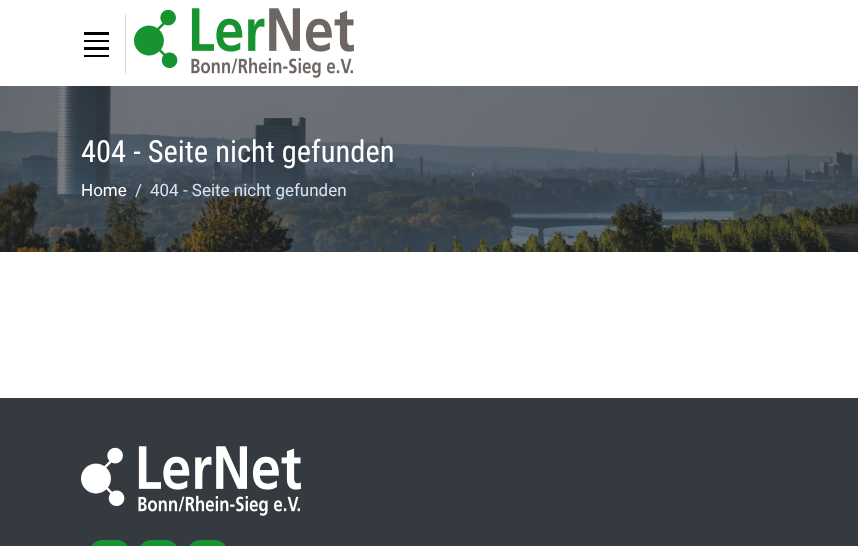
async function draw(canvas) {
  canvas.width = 858
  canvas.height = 546
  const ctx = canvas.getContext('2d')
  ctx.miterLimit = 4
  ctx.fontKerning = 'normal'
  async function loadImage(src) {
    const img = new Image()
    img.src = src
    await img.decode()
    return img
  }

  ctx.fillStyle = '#fff'
  ctx.fillRect(0, 0, 858, 546)
  ctx.fillStyle = '#d9d9d9'
  ctx.beginPath()
  ctx.moveTo(126, 14)
  ctx.lineTo(126, 74)
  ctx.lineTo(125, 73)
  ctx.lineTo(125, 15)
  ctx.closePath()
  ctx.fill()
  ctx.fillStyle = '#000'
  ctx.fillRect(84, 32, 25, 3)
  ctx.fillRect(84, 40, 25, 2)
  ctx.fillRect(84, 47, 25, 3)
  ctx.fillRect(84, 55, 25, 2)
  ctx.drawImage(await loadImage('image0.png'), 134, 8, 220, 70)
  ctx.drawImage(await loadImage('image1.png'), 0, 86, 858, 166)
  ctx.font = '30.5px Roboto Condensed'
  ctx.fillStyle = '#fff'
  ctx.fillText('404 - Seite nicht gefunden', 81, 162)
  ctx.font = '17px Roboto'
  ctx.fillText('Home', 81, 196)
  ctx.fillStyle = '#d9e2ef'
  ctx.fillText('/', 135, 196)
  ctx.fillText('404 - Seite nicht gefunden', 150, 196)
  ctx.fillStyle = '#343a40'
  ctx.fillRect(0, 398, 858, 148)
  ctx.drawImage(await loadImage('image2.png'), 81, 446, 220, 70)
  ctx.fillStyle = '#189332'
  ctx.beginPath()
  ctx.roundRect(89, 540, 41, 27, 20.5)
  ctx.fill()
  ctx.beginPath()
  ctx.roundRect(138, 540, 41, 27, 20.5)
  ctx.fill()
  ctx.beginPath()
  ctx.roundRect(187, 540, 41, 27, 20.5)
  ctx.fill()
}

draw(document.querySelector('canvas'))
